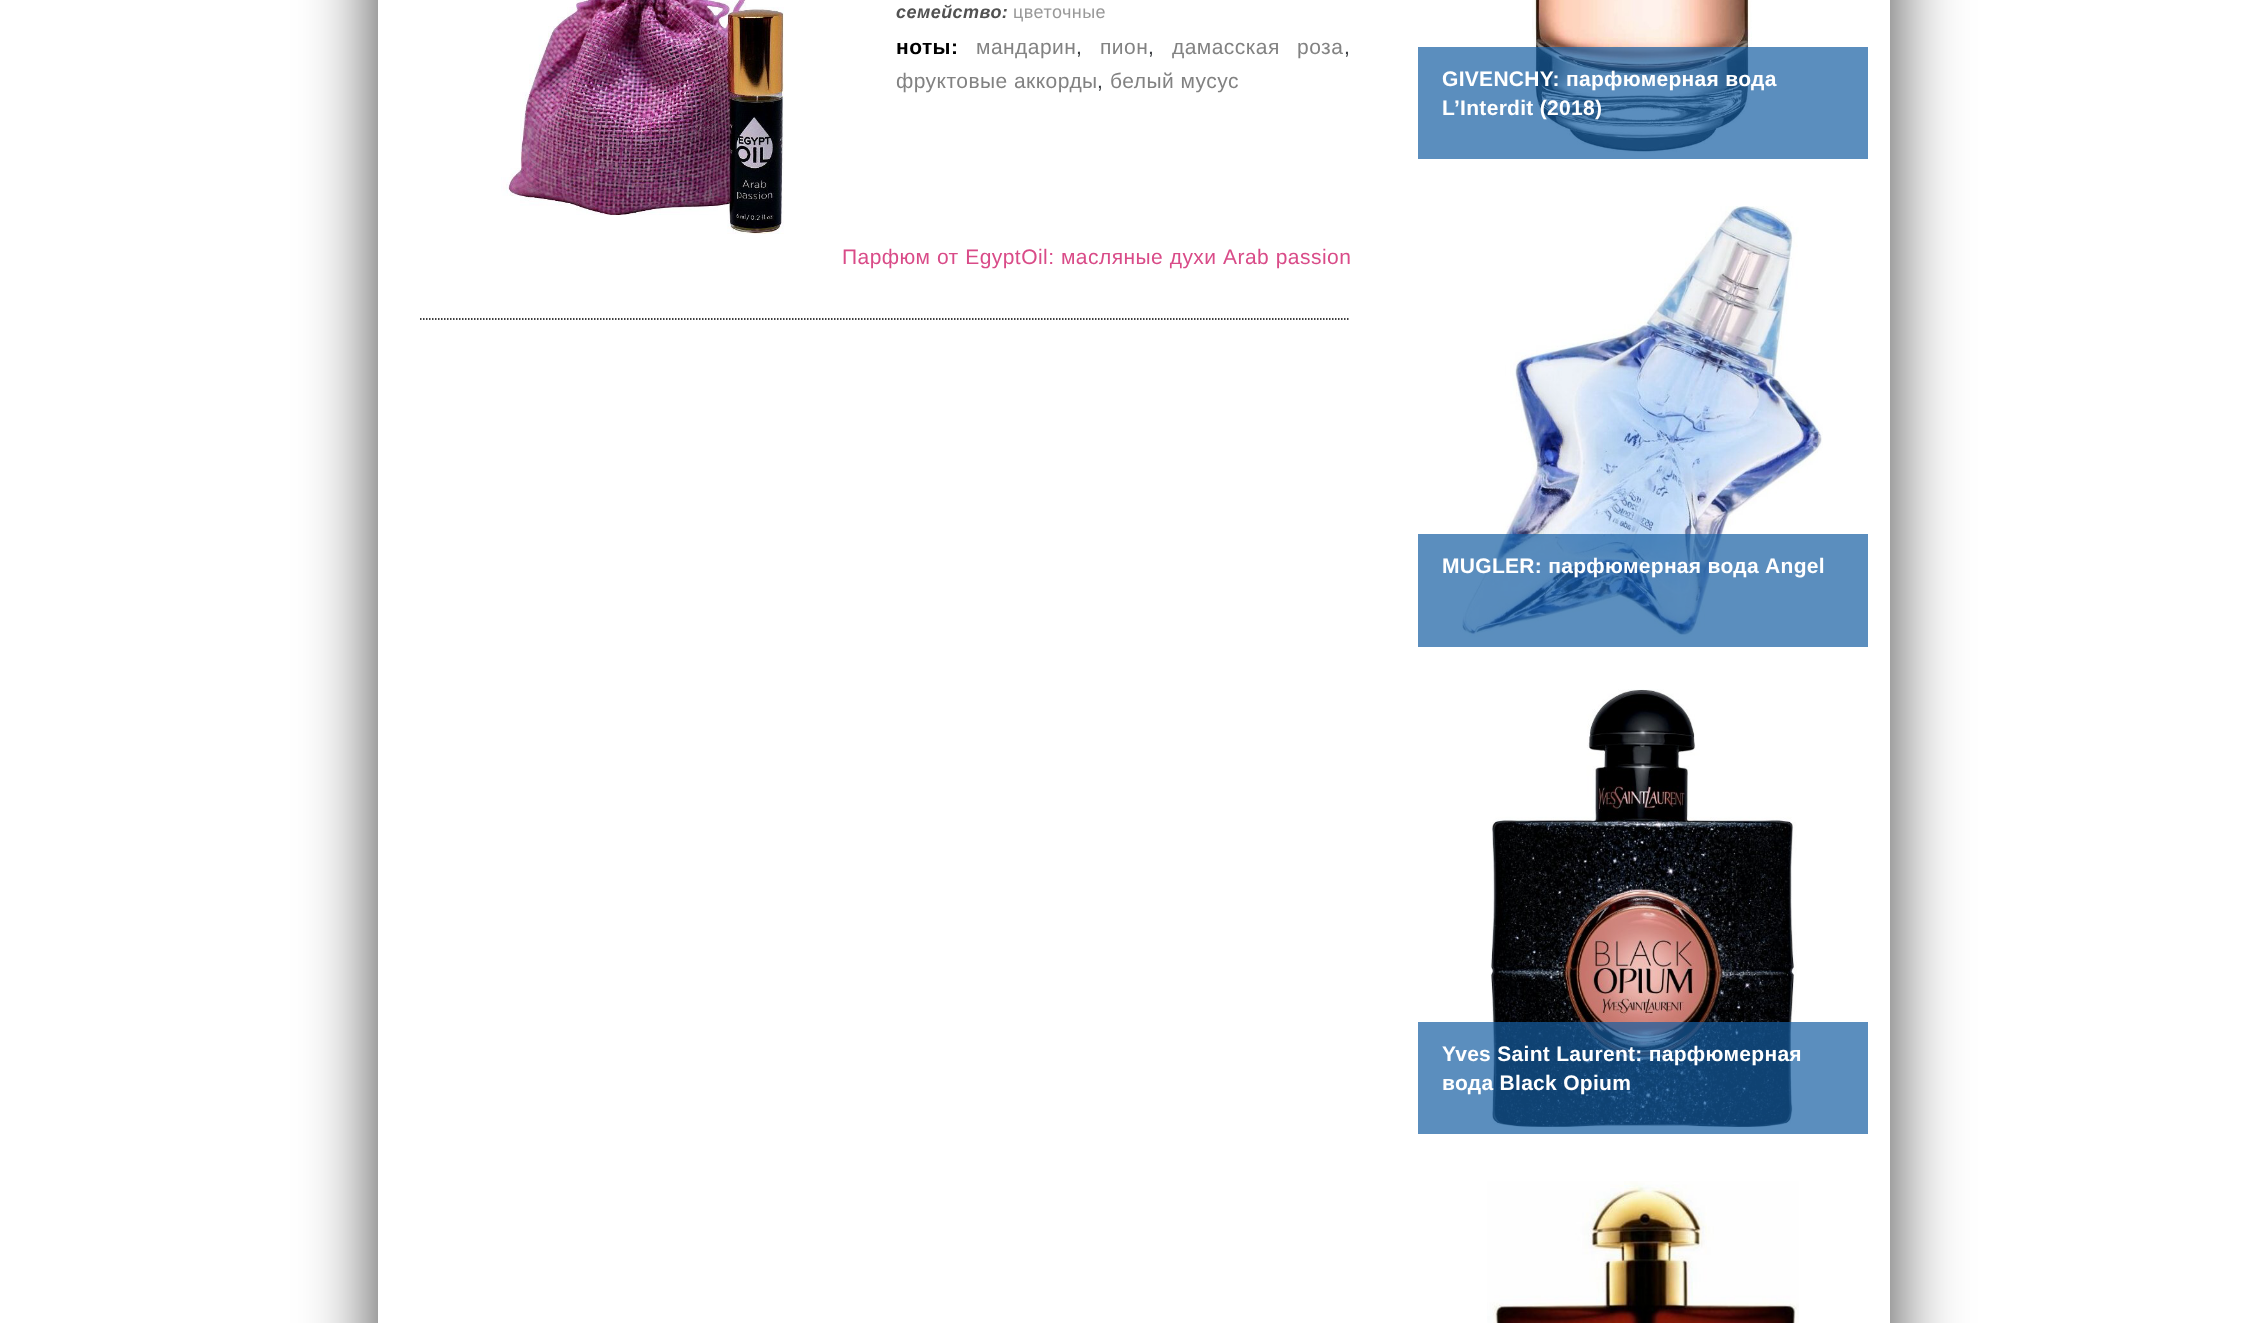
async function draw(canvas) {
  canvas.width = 2267
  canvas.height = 1323
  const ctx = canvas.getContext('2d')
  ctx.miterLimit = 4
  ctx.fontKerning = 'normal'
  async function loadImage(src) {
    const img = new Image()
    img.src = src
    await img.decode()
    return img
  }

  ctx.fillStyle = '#fff'
  ctx.fillRect(0, 0, 2267, 1323)
  ctx.save()
  ctx.beginPath()
  ctx.moveTo(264, 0)
  ctx.lineTo(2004, 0)
  ctx.lineTo(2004, 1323)
  ctx.lineTo(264, 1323)
  ctx.closePath()
  ctx.moveTo(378, -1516)
  ctx.lineTo(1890, -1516)
  ctx.lineTo(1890, 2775)
  ctx.lineTo(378, 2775)
  ctx.closePath()
  ctx.clip('evenodd')
  ctx.fillStyle = '#000000bf'
  ctx.filter = 'blur(37.5px)'
  ctx.beginPath()
  ctx.rect(378, -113, 1512, 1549)
  ctx.fill()
  ctx.filter = 'none'
  ctx.restore()
  ctx.drawImage(await loadImage('image0.png'), 501, 0, 283, 234)
  ctx.letterSpacing = '0.45px'
  ctx.font = 'italic bold 18px Liberation Sans'
  ctx.fillStyle = '#525252'
  ctx.fillText('семейство:', 896, 18)
  ctx.font = '18px Liberation Sans'
  ctx.fillStyle = '#999'
  ctx.fillText('цветочные', 1013, 18)
  ctx.font = 'bold 21px Liberation Sans'
  ctx.fillStyle = '#000'
  ctx.fillText('ноты:', 896, 54)
  ctx.font = '21px Liberation Sans'
  ctx.fillStyle = '#828282'
  ctx.fillText('мандарин', 976, 54)
  ctx.fillStyle = '#383b3f'
  ctx.fillText(',', 1076, 54)
  ctx.fillStyle = '#828282'
  ctx.fillText('пион', 1100, 54)
  ctx.fillStyle = '#383b3f'
  ctx.fillText(',', 1148, 54)
  ctx.wordSpacing = '11px'
  ctx.fillStyle = '#828282'
  ctx.fillText('дамасская роза', 1172, 54)
  ctx.wordSpacing = '0px'
  ctx.fillStyle = '#383b3f'
  ctx.fillText(',', 1344, 54)
  ctx.fillStyle = '#828282'
  ctx.fillText('фруктовые аккорды', 896, 88)
  ctx.fillStyle = '#383b3f'
  ctx.fillText(',', 1097, 88)
  ctx.fillStyle = '#828282'
  ctx.fillText('белый мусус', 1110, 88)
  ctx.wordSpacing = '0.25px'
  ctx.fillStyle = '#d94b88'
  ctx.fillText('Парфюм от EgyptOil: масляные духи Arab passion', 842, 264)
  ctx.beginPath()
  ctx.moveTo(420, 319)
  ctx.lineTo(1350, 319)
  ctx.strokeStyle = '#000'
  ctx.lineWidth = 1.5
  ctx.setLineDash([1.5, 1.5])
  ctx.stroke()
  ctx.drawImage(await loadImage('image1.png'), 1532, 0, 220, 153)
  ctx.fillStyle = '#165ea2b3'
  ctx.fillRect(1418, 47, 450, 112)
  ctx.letterSpacing = '0.3px'
  ctx.wordSpacing = '0px'
  ctx.font = 'bold 21px Liberation Sans'
  ctx.fillStyle = '#fff'
  ctx.fillText('GIVENCHY: парфюмерная вода', 1442, 86)
  ctx.fillText('L’Interdit (2018)', 1442, 115)
  ctx.drawImage(await loadImage('image2.png'), 1460, 206, 363, 431)
  ctx.fillStyle = '#165ea2b3'
  ctx.fillRect(1418, 534, 450, 113)
  ctx.fillStyle = '#fff'
  ctx.fillText('MUGLER: парфюмерная вода Angel', 1442, 573)
  ctx.drawImage(await loadImage('image3.png'), 1490, 689, 307, 441)
  ctx.fillStyle = '#165ea2b3'
  ctx.fillRect(1418, 1022, 450, 112)
  ctx.fillStyle = '#fff'
  ctx.fillText('Yves Saint Laurent: парфюмерная', 1442, 1061)
  ctx.fillText('вода Black Opium', 1442, 1090)
  ctx.drawImage(await loadImage('image4.png'), 1487, 1181, 312, 142)
}

draw(document.querySelector('canvas'))
